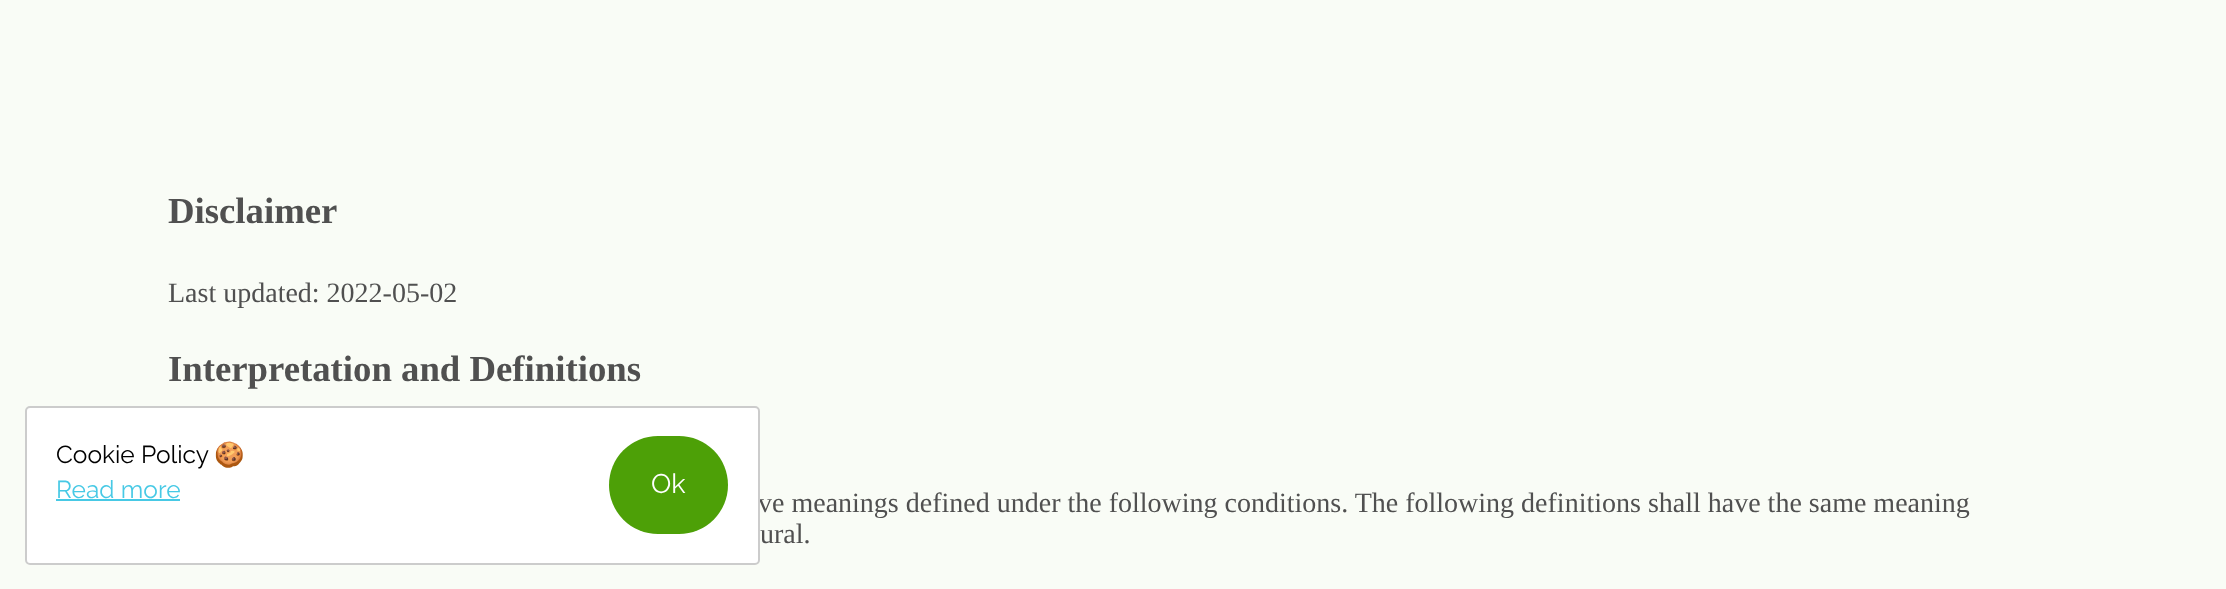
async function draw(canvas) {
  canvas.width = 2226
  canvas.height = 589
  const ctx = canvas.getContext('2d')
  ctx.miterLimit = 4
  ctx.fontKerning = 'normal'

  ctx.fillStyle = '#f9fcf6'
  ctx.fillRect(0, 0, 2226, 589)
  ctx.font = 'bold 36.75px Liberation Serif'
  ctx.fillStyle = '#505050'
  ctx.fillText('Disclaimer', 168, 223)
  ctx.font = '28px Liberation Serif'
  ctx.fillText('Last updated: 2022-05-02', 168, 302)
  ctx.font = 'bold 36.75px Liberation Serif'
  ctx.fillText('Interpretation and Definitions', 168, 381)
  ctx.font = '28px Liberation Serif'
  ctx.fillText('ve meanings defined under the following conditions. The following definitions shall have the same meaning', 758, 512)
  ctx.fillText('ural.', 760, 543)
  ctx.fillStyle = '#fff'
  ctx.beginPath()
  ctx.roundRect(26, 407, 733, 157, 4)
  ctx.fill()
  ctx.strokeStyle = '#ccc'
  ctx.lineWidth = 2
  ctx.stroke()
  ctx.font = '24.5px Raleway'
  ctx.fillStyle = '#000'
  ctx.fillText('Cookie Policy', 56, 463)
  ctx.font = '24.5px Noto Color Emoji'
  ctx.fillText('🍪', 214, 463)
  ctx.font = '24.5px Raleway'
  ctx.fillStyle = '#47c9e5'
  ctx.fillText('Read more', 56, 498)
  ctx.fillRect(56, 499, 124, 2)
  ctx.fillStyle = '#4da007'
  ctx.beginPath()
  ctx.roundRect(609, 436, 119, 98, 49)
  ctx.fill()
  ctx.font = '27px Raleway'
  ctx.fillStyle = '#fff'
  ctx.fillText('Ok', 651, 493)
}

draw(document.querySelector('canvas'))
